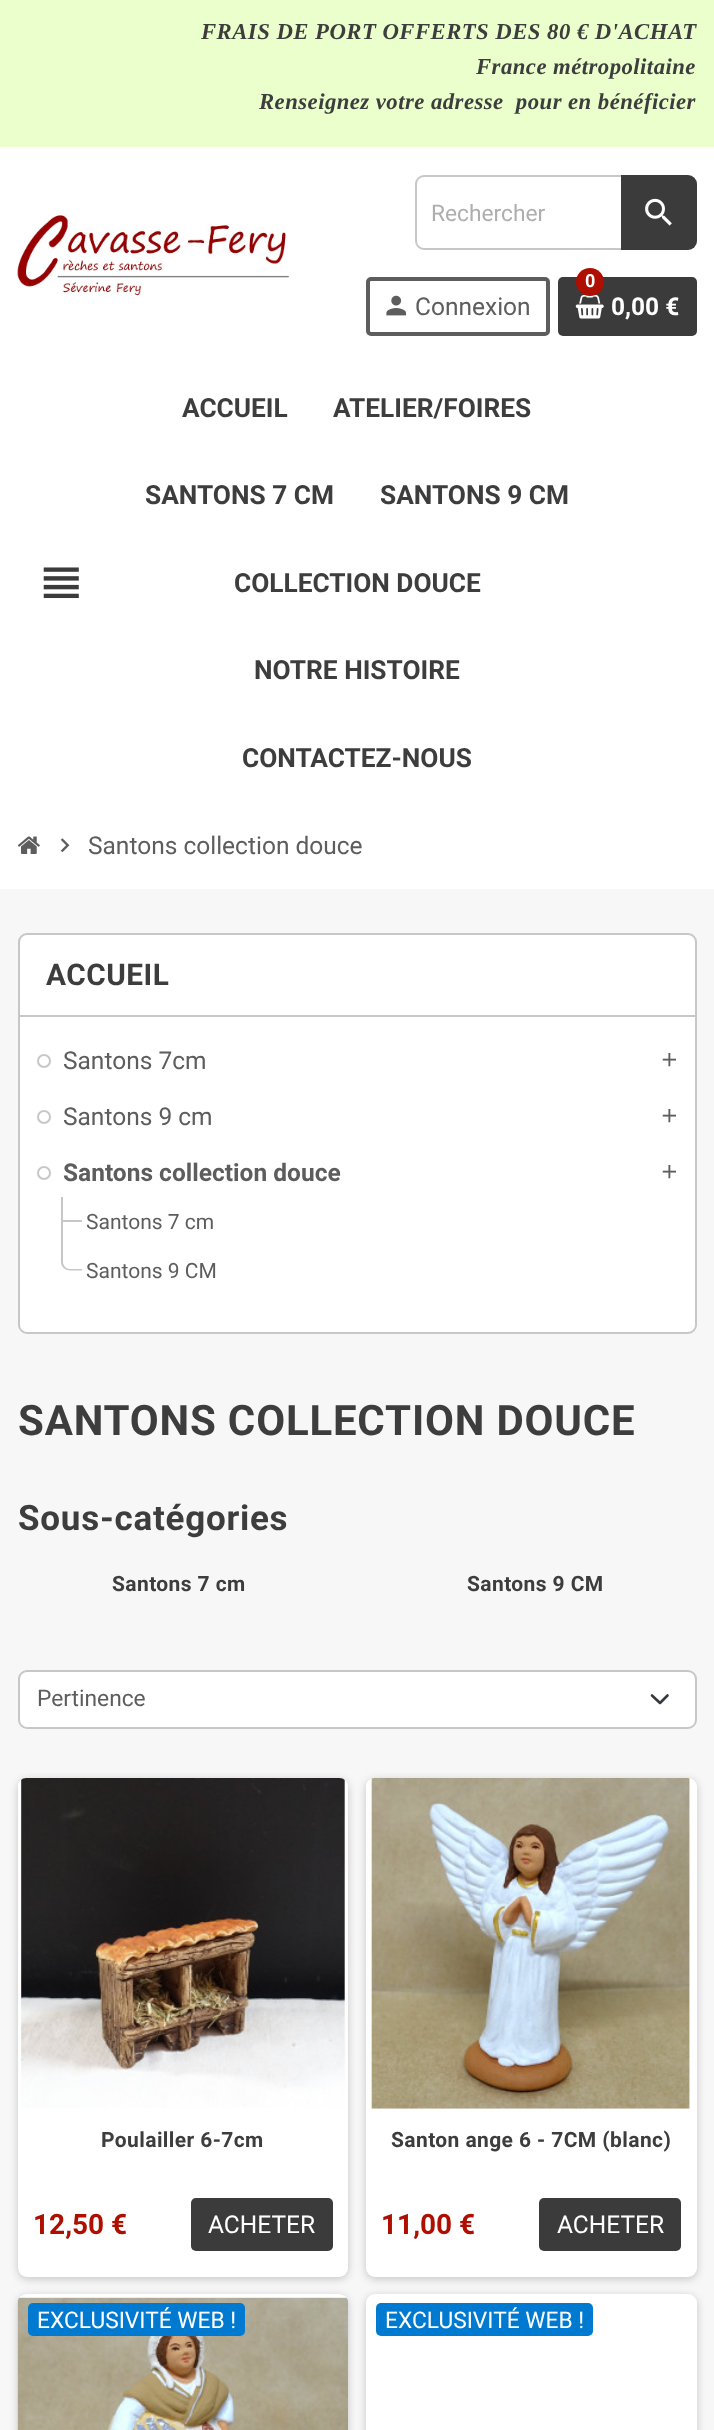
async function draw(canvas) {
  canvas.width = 714
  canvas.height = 2430
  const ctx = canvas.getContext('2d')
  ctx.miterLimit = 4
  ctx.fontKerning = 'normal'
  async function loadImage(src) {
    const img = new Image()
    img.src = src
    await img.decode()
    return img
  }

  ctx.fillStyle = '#fff'
  ctx.fillRect(0, 0, 714, 2430)
  ctx.fillStyle = '#eaffcc'
  ctx.fillRect(0, 0, 714, 147)
  ctx.letterSpacing = '0.45px'
  ctx.font = 'italic bold 22.75px Liberation Serif'
  ctx.fillStyle = '#3d3d3d'
  ctx.fillText('FRAIS DE PORT OFFERTS DES 80 € D\'ACHAT', 201, 39)
  ctx.fillText('France métropolitaine', 476, 74)
  ctx.fillText('Renseignez votre adresse  pour en bénéficier', 259, 109)
  ctx.drawImage(await loadImage('image0.png'), 17, 215, 272, 81)
  ctx.beginPath()
  ctx.roundRect(416, 176, 278, 73, 8)
  ctx.strokeStyle = '#c7c7c7'
  ctx.lineWidth = 2
  ctx.stroke()
  ctx.letterSpacing = '0px'
  ctx.font = '22.75px Roboto'
  ctx.fillStyle = '#aeaeae'
  ctx.fillText('Rechercher', 431, 221)
  ctx.fillStyle = '#3b3b3b'
  ctx.beginPath()
  ctx.roundRect(621, 175, 76, 75, [0, 9, 9, 0])
  ctx.fill()
  ctx.drawImage(await loadImage('image1.png'), 645, 198, 27, 28)
  ctx.beginPath()
  ctx.roundRect(368, 279, 180, 55, 3)
  ctx.strokeStyle = '#5d5d5d'
  ctx.lineWidth = 4
  ctx.stroke()
  ctx.drawImage(await loadImage('image2.png'), 386, 295, 20, 21)
  ctx.font = '24.5px Roboto'
  ctx.fillStyle = '#5d5d5d'
  ctx.fillText('Connexion', 415, 315)
  ctx.fillStyle = '#3b3b3b'
  ctx.beginPath()
  ctx.roundRect(558, 277, 139, 59, 5)
  ctx.fill()
  ctx.drawImage(await loadImage('image3.png'), 575, 294, 29, 25)
  ctx.fillStyle = '#af0f00'
  ctx.beginPath()
  ctx.arc(590, 282, 14, 0, 2 * Math.PI)
  ctx.fill()
  ctx.font = 'bold 18px "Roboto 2"'
  ctx.fillStyle = '#fff'
  ctx.fillText('0', 585, 287)
  ctx.font = 'bold 24.5px "Roboto 2"'
  ctx.fillText('0,00 €', 611, 315)
  ctx.drawImage(await loadImage('image4.png'), 43, 567, 36, 32)
  ctx.font = 'bold 26.25px Roboto'
  ctx.fillStyle = '#3d3d3d'
  ctx.fillText('ACCUEIL', 182, 417)
  ctx.fillText('ATELIER/FOIRES', 333, 417)
  ctx.fillText('SANTONS 7 CM', 145, 504)
  ctx.fillText('SANTONS 9 CM', 380, 504)
  ctx.fillText('COLLECTION DOUCE', 234, 592)
  ctx.fillText('NOTRE HISTOIRE', 254, 679)
  ctx.fillText('CONTACTEZ-NOUS', 242, 767)
  ctx.fillStyle = '#f7f7f7'
  ctx.fillRect(0, 889, 714, 1541)
  ctx.drawImage(await loadImage('image5.png'), 17, 836, 23, 18)
  ctx.drawImage(await loadImage('image6.png'), 60, 838, 10, 15)
  ctx.font = '24.5px Roboto'
  ctx.fillStyle = '#5d5d5d'
  ctx.fillText('Santons collection douce', 88, 854)
  ctx.fillStyle = '#fff'
  ctx.beginPath()
  ctx.roundRect(19, 934, 677, 399, 8)
  ctx.fill()
  ctx.strokeStyle = '#c7c7c7'
  ctx.lineWidth = 2
  ctx.stroke()
  ctx.fillStyle = '#c7c7c7'
  ctx.fillRect(19, 1015, 676, 2)
  ctx.letterSpacing = '0.5px'
  ctx.font = 'bold 29.75px Roboto'
  ctx.fillStyle = '#3d3d3d'
  ctx.fillText('ACCUEIL', 46, 985)
  ctx.beginPath()
  ctx.arc(44, 1061, 6, 0, 2 * Math.PI)
  ctx.stroke()
  ctx.letterSpacing = '0px'
  ctx.font = '24.5px Roboto'
  ctx.fillStyle = '#5d5d5d'
  ctx.fillText('Santons 7cm', 63, 1069)
  ctx.drawImage(await loadImage('image7.png'), 662, 1053, 14, 14)
  ctx.beginPath()
  ctx.arc(44, 1117, 6, 0, 2 * Math.PI)
  ctx.stroke()
  ctx.fillText('Santons 9 cm', 63, 1125)
  ctx.drawImage(await loadImage('image7.png'), 662, 1109, 14, 14)
  ctx.beginPath()
  ctx.arc(44, 1173, 6, 0, 2 * Math.PI)
  ctx.stroke()
  ctx.font = 'bold 24.5px "Roboto 2"'
  ctx.fillText('Santons collection douce', 63, 1181)
  ctx.drawImage(await loadImage('image7.png'), 662, 1165, 14, 14)
  ctx.fillStyle = '#c7c7c7'
  ctx.fillRect(61, 1220, 21, 2)
  ctx.fillRect(61, 1197, 2, 49)
  ctx.font = '21px Roboto'
  ctx.fillStyle = '#5d5d5d'
  ctx.fillText('Santons 7 cm', 86, 1229)
  ctx.fillStyle = '#c7c7c7'
  ctx.beginPath()
  ctx.moveTo(61, 1246)
  ctx.lineTo(82, 1246)
  ctx.lineTo(82, 1270.5)
  ctx.lineTo(70, 1270.5)
  ctx.bezierCurveTo(65, 1270.5, 61, 1266.5, 61, 1262)
  ctx.closePath()
  ctx.moveTo(63, 1246)
  ctx.lineTo(82, 1246)
  ctx.lineTo(82, 1269)
  ctx.lineTo(70, 1269)
  ctx.bezierCurveTo(66, 1269, 63, 1265.5, 63, 1262)
  ctx.closePath()
  ctx.fill('evenodd')
  ctx.fillStyle = '#5d5d5d'
  ctx.fillText('Santons 9 CM', 86, 1278)
  ctx.letterSpacing = '0.8px'
  ctx.font = 'bold 42px Roboto'
  ctx.fillStyle = '#3d3d3d'
  ctx.fillText('SANTONS COLLECTION DOUCE', 18, 1435)
  ctx.letterSpacing = '0.75px'
  ctx.font = 'bold 35px Roboto'
  ctx.fillText('Sous-catégories', 18, 1530)
  ctx.letterSpacing = '0.4px'
  ctx.font = 'bold 21px Roboto'
  ctx.fillText('Santons 7 cm', 112, 1591)
  ctx.fillText('Santons 9 CM', 467, 1591)
  ctx.fillStyle = '#fff'
  ctx.beginPath()
  ctx.roundRect(18, 1670, 679, 59, 9)
  ctx.fill()
  ctx.beginPath()
  ctx.moveTo(652, 1695.5)
  ctx.lineTo(660, 1703)
  ctx.lineTo(667.5, 1695.5)
  ctx.strokeStyle = '#343a40'
  ctx.lineWidth = 2.6
  ctx.lineCap = 'round'
  ctx.lineJoin = 'round'
  ctx.stroke()
  ctx.beginPath()
  ctx.roundRect(19, 1671, 677, 57, 8)
  ctx.strokeStyle = '#c7c7c7'
  ctx.lineWidth = 2
  ctx.lineJoin = 'miter'
  ctx.stroke()
  ctx.letterSpacing = '0px'
  ctx.font = '22.75px Roboto'
  ctx.fillStyle = '#5d5d5d'
  ctx.fillText('Pertinence', 37, 1706)
  ctx.fillStyle = '#00000033'
  ctx.filter = 'blur(4.5px)'
  ctx.beginPath()
  ctx.roundRect(18, 1780, 330, 499, 9)
  ctx.fill()
  ctx.filter = 'none'
  ctx.fillStyle = '#fff'
  ctx.beginPath()
  ctx.roundRect(18, 1778, 330, 499, 9)
  ctx.fill()
  ctx.drawImage(await loadImage('image8.png'), 18, 1778, 330, 330)
  ctx.letterSpacing = '0.4px'
  ctx.font = 'bold 21px "Roboto 2"'
  ctx.fillStyle = '#3d3d3d'
  ctx.fillText('Poulailler 6-7cm', 101, 2147)
  ctx.letterSpacing = '0px'
  ctx.font = 'bold 28px "Roboto 2"'
  ctx.fillStyle = '#af0f00'
  ctx.fillText('12,50 €', 33, 2234)
  ctx.fillStyle = '#3b3b3b'
  ctx.beginPath()
  ctx.roundRect(191, 2198, 142, 53, 5)
  ctx.fill()
  ctx.font = '24.5px Roboto'
  ctx.fillStyle = '#fff'
  ctx.fillText('ACHETER', 208, 2233)
  ctx.fillStyle = '#00000033'
  ctx.filter = 'blur(4.5px)'
  ctx.beginPath()
  ctx.roundRect(366, 1780, 331, 499, 9)
  ctx.fill()
  ctx.filter = 'none'
  ctx.fillStyle = '#fff'
  ctx.beginPath()
  ctx.roundRect(366, 1778, 331, 499, 9)
  ctx.fill()
  ctx.drawImage(await loadImage('image9.png'), 366, 1778, 324, 331)
  ctx.letterSpacing = '0.4px'
  ctx.font = 'bold 21px "Roboto 2"'
  ctx.fillStyle = '#3d3d3d'
  ctx.fillText('Santon ange 6 - 7CM (blanc)', 391, 2147)
  ctx.letterSpacing = '0px'
  ctx.font = 'bold 28px "Roboto 2"'
  ctx.fillStyle = '#af0f00'
  ctx.fillText('11,00 €', 381, 2234)
  ctx.fillStyle = '#3b3b3b'
  ctx.beginPath()
  ctx.roundRect(539, 2198, 142, 53, 5)
  ctx.fill()
  ctx.font = '24.5px Roboto'
  ctx.fillStyle = '#fff'
  ctx.fillText('ACHETER', 557, 2233)
  ctx.fillStyle = '#00000033'
  ctx.filter = 'blur(4.5px)'
  ctx.beginPath()
  ctx.roundRect(18, 2296, 330, 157, 9)
  ctx.fill()
  ctx.filter = 'none'
  ctx.fillStyle = '#fff'
  ctx.beginPath()
  ctx.roundRect(18, 2294, 330, 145, 9)
  ctx.fill()
  ctx.drawImage(await loadImage('image10.png'), 17, 2296, 331, 134)
  ctx.fillStyle = '#007ad1'
  ctx.beginPath()
  ctx.roundRect(28, 2303, 217, 33, 5)
  ctx.fill()
  ctx.font = '22.75px Roboto'
  ctx.fillStyle = '#fff'
  ctx.fillText('EXCLUSIVITÉ WEB !', 37, 2328)
  ctx.fillStyle = '#00000033'
  ctx.filter = 'blur(4.5px)'
  ctx.beginPath()
  ctx.roundRect(366, 2296, 331, 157, 9)
  ctx.fill()
  ctx.filter = 'none'
  ctx.fillStyle = '#fff'
  ctx.beginPath()
  ctx.roundRect(366, 2294, 331, 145, 9)
  ctx.fill()
  ctx.fillStyle = '#007ad1'
  ctx.beginPath()
  ctx.roundRect(376, 2303, 217, 33, 5)
  ctx.fill()
  ctx.fillStyle = '#fff'
  ctx.fillText('EXCLUSIVITÉ WEB !', 385, 2328)
}

draw(document.querySelector('canvas'))
